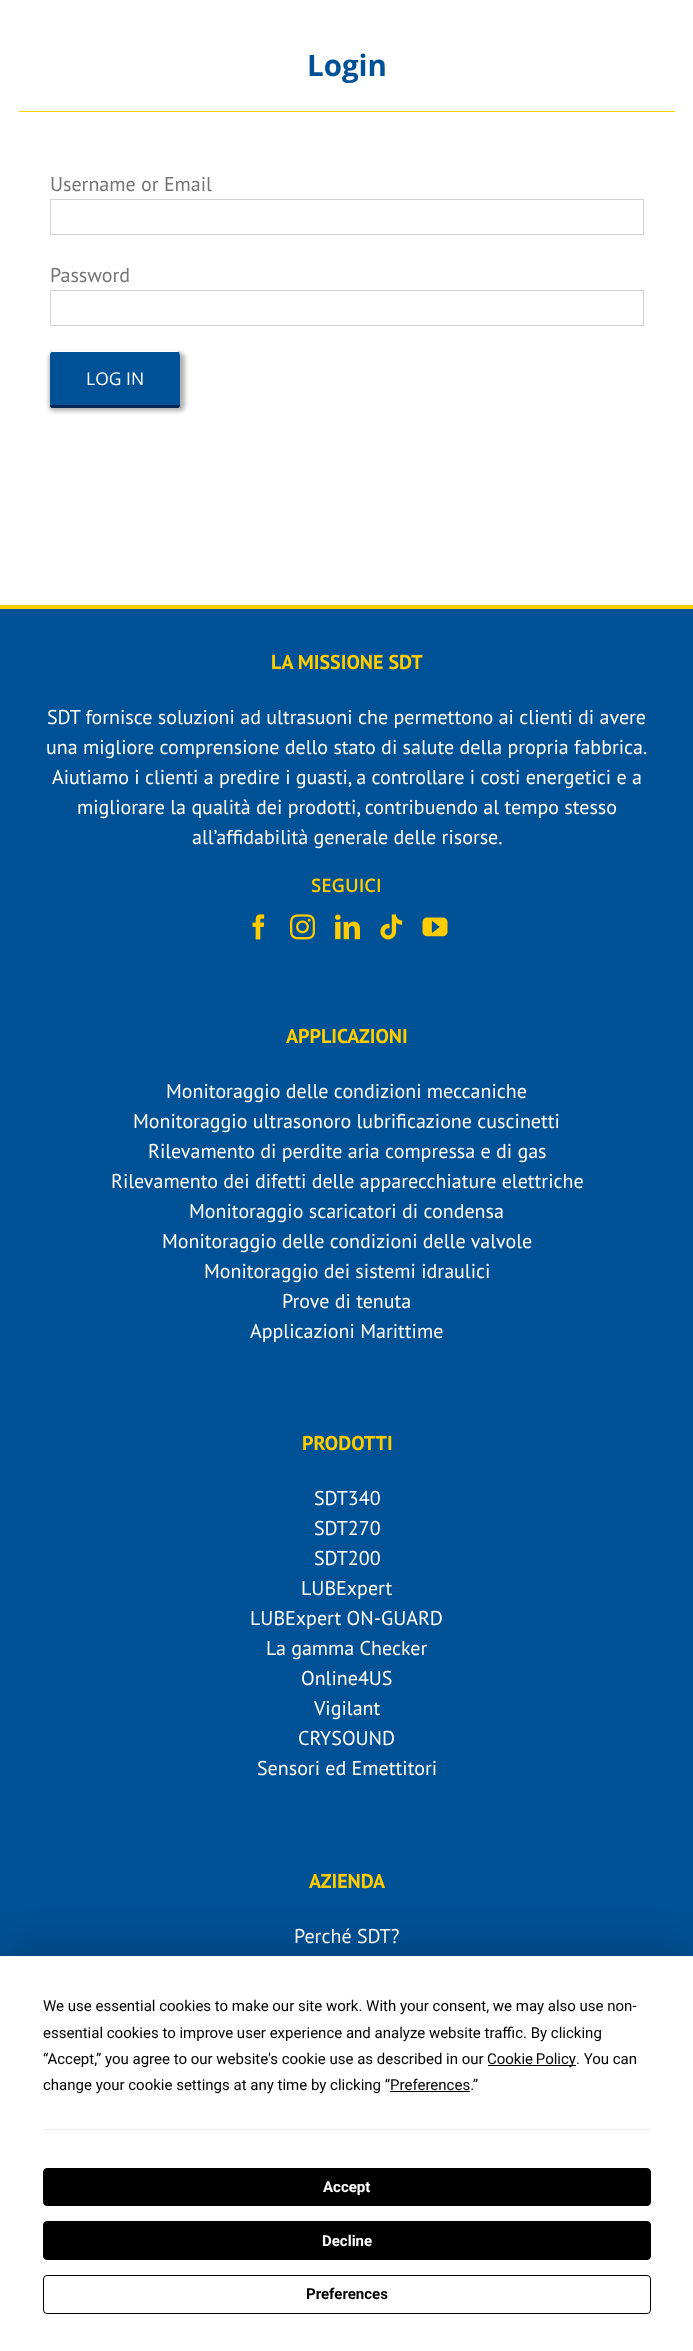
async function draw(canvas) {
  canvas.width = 693
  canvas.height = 2351
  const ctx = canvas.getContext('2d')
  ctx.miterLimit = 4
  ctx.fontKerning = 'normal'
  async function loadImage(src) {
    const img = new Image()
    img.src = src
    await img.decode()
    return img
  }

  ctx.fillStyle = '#fff'
  ctx.fillRect(0, 0, 693, 2351)
  ctx.fillStyle = '#fc0'
  ctx.fillRect(19, 111, 656, 1)
  ctx.font = 'bold 29.5px Open Sans'
  ctx.fillStyle = '#005195'
  ctx.fillText('Login', 307, 76)
  ctx.font = '20px PT Sans'
  ctx.fillStyle = '#747474'
  ctx.fillText('Username or Email', 50, 191)
  ctx.strokeStyle = '#d2d2d2'
  ctx.strokeRect(50.5, 199.5, 593, 35)
  ctx.fillText('Password', 50, 282)
  ctx.strokeRect(50.5, 290.5, 593, 35)
  ctx.fillStyle = '#0000004d'
  ctx.filter = 'blur(2px)'
  ctx.beginPath()
  ctx.roundRect(49, 353, 136, 58, 5)
  ctx.fill()
  ctx.filter = 'none'
  ctx.fillStyle = '#002756'
  ctx.beginPath()
  ctx.moveTo(50, 402)
  ctx.lineTo(50, 406)
  ctx.bezierCurveTo(50, 407, 51, 408, 52, 408)
  ctx.lineTo(178, 408)
  ctx.bezierCurveTo(179, 408, 180, 407, 180, 406)
  ctx.lineTo(180, 402)
  ctx.bezierCurveTo(180, 404, 179, 405, 178, 405)
  ctx.lineTo(52, 405)
  ctx.lineTo(50, 404)
  ctx.closePath()
  ctx.fill()
  ctx.fillStyle = '#005195'
  ctx.beginPath()
  ctx.roundRect(50, 351, 130, 54, 2.5)
  ctx.fill()
  ctx.fillStyle = '#fff'
  ctx.beginPath()
  ctx.moveTo(52, 352)
  ctx.lineTo(179, 352)
  ctx.lineTo(180, 355)
  ctx.lineTo(180, 354)
  ctx.bezierCurveTo(180, 352, 179, 351, 178, 351)
  ctx.lineTo(52, 351)
  ctx.bezierCurveTo(51, 351, 50, 352, 50, 354)
  ctx.lineTo(50, 355)
  ctx.bezierCurveTo(50, 354, 51, 352, 52, 352)
  ctx.closePath()
  ctx.fill()
  ctx.font = '17.5px Open Sans'
  ctx.fillText('LOG IN', 86, 385)
  ctx.fillStyle = '#005195'
  ctx.fillRect(0, 609, 693, 1347)
  ctx.fillStyle = '#fc0'
  ctx.fillRect(0, 605, 693, 4)
  ctx.font = 'bold 20px PT Sans'
  ctx.fillText('LA MISSIONE SDT', 271, 669)
  ctx.font = '20px PT Sans'
  ctx.fillStyle = '#fff'
  ctx.fillText('SDT fornisce soluzioni ad ultrasuoni che permettono ai clienti di avere', 47, 724)
  ctx.fillText('una migliore comprensione dello stato di salute della propria fabbrica.', 46, 754)
  ctx.fillText('Aiutiamo i clienti a predire i guasti, a controllare i costi energetici e a', 52, 784)
  ctx.fillText('migliorare la qualità dei prodotti, contribuendo al tempo stesso', 77, 814)
  ctx.fillText('all’affidabilità generale delle risorse.', 192, 844)
  ctx.font = '600 18.5px Open Sans'
  ctx.fillStyle = '#fc0'
  ctx.fillText('SEGUICI', 311, 892)
  ctx.drawImage(await loadImage('image0.png'), 252, 914, 13, 26)
  ctx.drawImage(await loadImage('image1.png'), 290, 914, 25, 26)
  ctx.drawImage(await loadImage('image2.png'), 335, 914, 25, 26)
  ctx.drawImage(await loadImage('image3.png'), 380, 914, 23, 26)
  ctx.drawImage(await loadImage('image4.png'), 422, 917, 26, 20)
  ctx.font = 'bold 20px PT Sans'
  ctx.fillText('APPLICAZIONI', 286, 1043)
  ctx.font = '20px PT Sans'
  ctx.fillStyle = '#fff'
  ctx.fillText('Monitoraggio delle condizioni meccaniche', 166, 1098)
  ctx.fillText('Monitoraggio ultrasonoro lubrificazione cuscinetti', 133, 1128)
  ctx.fillText('Rilevamento di perdite aria compressa e di gas', 148, 1158)
  ctx.fillText('Rilevamento dei difetti delle apparecchiature elettriche', 111, 1188)
  ctx.fillText('Monitoraggio scaricatori di condensa', 189, 1218)
  ctx.fillText('Monitoraggio delle condizioni delle valvole', 162, 1248)
  ctx.fillText('Monitoraggio dei sistemi idraulici', 204, 1278)
  ctx.fillText('Prove di tenuta', 282, 1308)
  ctx.fillText('Applicazioni Marittime', 250, 1338)
  ctx.font = 'bold 20px PT Sans'
  ctx.fillStyle = '#fc0'
  ctx.fillText('PRODOTTI', 302, 1450)
  ctx.font = '20px PT Sans'
  ctx.fillStyle = '#fff'
  ctx.fillText('SDT340', 314, 1505)
  ctx.fillText('SDT270', 314, 1535)
  ctx.fillText('SDT200', 314, 1565)
  ctx.fillText('LUBExpert', 301, 1595)
  ctx.fillText('LUBExpert ON-GUARD', 250, 1625)
  ctx.fillText('La gamma Checker', 266, 1655)
  ctx.fillText('Online4US', 301, 1685)
  ctx.fillText('Vigilant', 314, 1715)
  ctx.fillText('CRYSOUND', 298, 1745)
  ctx.fillText('Sensori ed Emettitori', 257, 1775)
  ctx.font = 'bold 20px PT Sans'
  ctx.fillStyle = '#fc0'
  ctx.fillText('AZIENDA', 309, 1888)
  ctx.font = '20px PT Sans'
  ctx.fillStyle = '#fff'
  ctx.fillText('Perché SDT?', 294, 1943)
  ctx.fillStyle = '#00000040'
  ctx.filter = 'blur(22px)'
  ctx.beginPath()
  ctx.rect(0, 1956, 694, 395)
  ctx.fill()
  ctx.filter = 'none'
  ctx.fillStyle = '#fff'
  ctx.fillRect(0, 1956, 693, 395)
  ctx.font = '15px Roboto'
  ctx.fillStyle = '#000'
  ctx.fillText('We use essential cookies to make our site work. With your consent, we may also use non-', 43, 2011)
  ctx.fillText('essential cookies to improve user experience and analyze website traffic. By clicking', 43, 2038)
  ctx.fillText('“Accept,” you agree to our website\'s cookie use as described in our', 43, 2064)
  ctx.fillRect(488, 2065, 88, 1)
  ctx.wordSpacing = '-1px'
  ctx.fillText('Cookie Policy', 487, 2064)
  ctx.wordSpacing = '0px'
  ctx.fillText('. You can', 576, 2064)
  ctx.fillText('change your cookie settings at any time by clicking “Preferences.”', 43, 2090)
  ctx.fillRect(390, 2091, 80, 1)
  ctx.fillStyle = '#ededef'
  ctx.fillRect(43, 2129, 608, 1)
  ctx.fillStyle = '#000'
  ctx.beginPath()
  ctx.roundRect(43.5, 2168.5, 607, 37, 3.5)
  ctx.fill()
  ctx.strokeStyle = '#000'
  ctx.stroke()
  ctx.font = 'bold 15px Roboto'
  ctx.fillStyle = '#fff'
  ctx.fillText('Accept', 323, 2192)
  ctx.fillStyle = '#000'
  ctx.beginPath()
  ctx.roundRect(43.5, 2221.5, 607, 38, 3.5)
  ctx.fill()
  ctx.stroke()
  ctx.fillStyle = '#fff'
  ctx.fillText('Decline', 322, 2246)
  ctx.beginPath()
  ctx.roundRect(43.5, 2275.5, 607, 38, 3.5)
  ctx.stroke()
  ctx.fillStyle = '#000'
  ctx.fillText('Preferences', 306, 2299)
}

draw(document.querySelector('canvas'))
